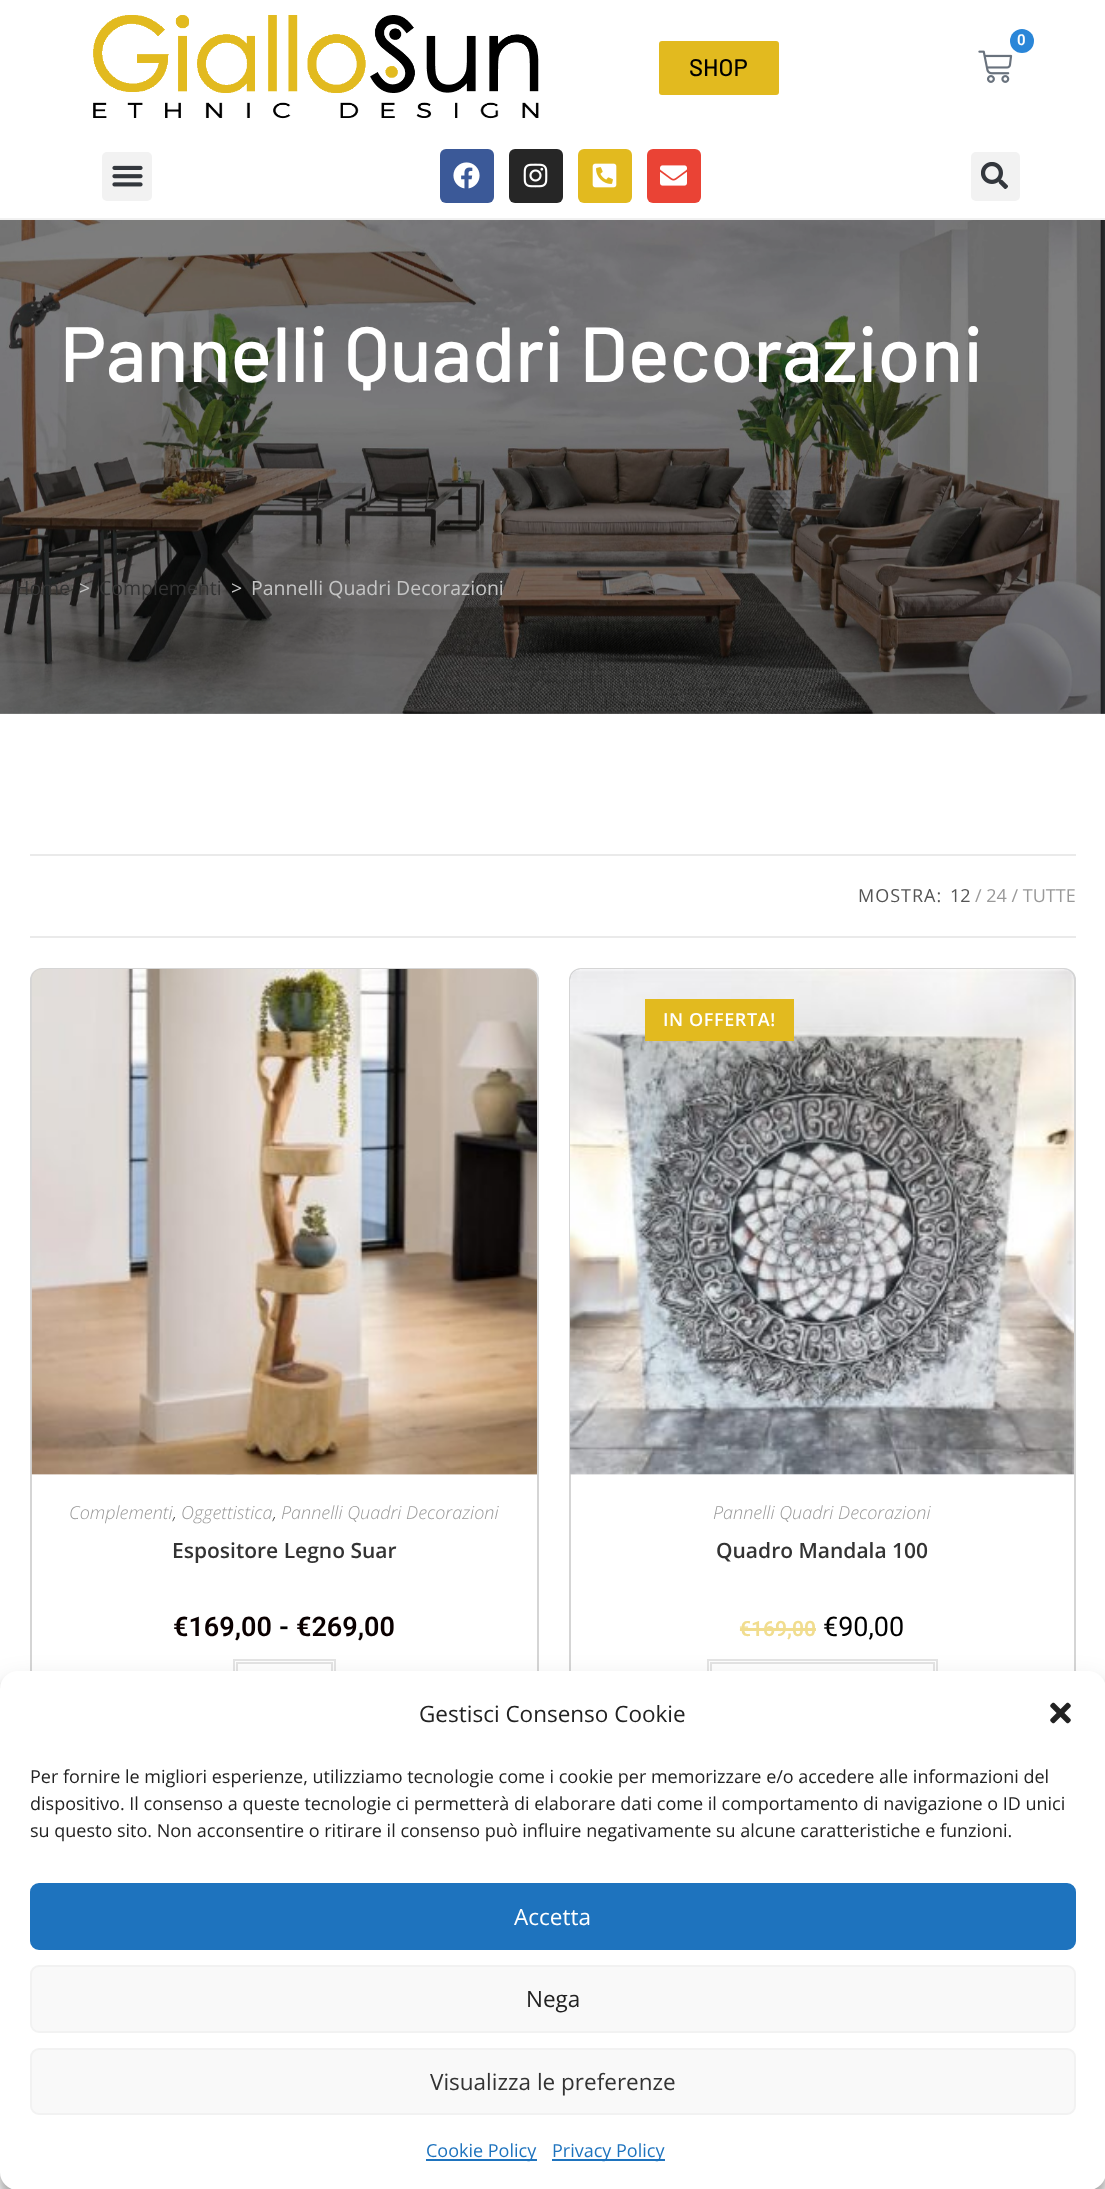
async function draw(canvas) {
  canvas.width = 1105
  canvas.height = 2189
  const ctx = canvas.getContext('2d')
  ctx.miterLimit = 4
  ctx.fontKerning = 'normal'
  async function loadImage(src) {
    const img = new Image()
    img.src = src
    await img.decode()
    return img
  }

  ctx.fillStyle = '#fff'
  ctx.fillRect(0, 0, 1105, 2189)
  ctx.fillStyle = '#f1f1f1'
  ctx.fillRect(0, 218, 1105, 2)
  ctx.drawImage(await loadImage('image0.png'), 93, 15, 446, 104)
  ctx.drawImage(await loadImage('image1.png'), 978, 50, 35, 33)
  ctx.fillStyle = '#2a86d8'
  ctx.beginPath()
  ctx.arc(1022, 41, 12, 0, 2 * Math.PI)
  ctx.fill()
  ctx.font = '600 15px Roboto'
  ctx.fillStyle = '#fff'
  ctx.fillText('0', 1017, 45)
  ctx.fillStyle = '#e2ba1f'
  ctx.beginPath()
  ctx.roundRect(659, 41, 120, 54, 3)
  ctx.fill()
  ctx.font = '500 24px Barlow'
  ctx.fillStyle = '#000'
  ctx.fillText('SHOP', 689, 76)
  ctx.fillStyle = '#f2f2f2'
  ctx.beginPath()
  ctx.roundRect(102, 152, 50, 49, 5)
  ctx.fill()
  ctx.drawImage(await loadImage('image2.png'), 112, 165, 31, 22)
  ctx.fillStyle = '#3b5998'
  ctx.beginPath()
  ctx.roundRect(440, 149, 54, 54, 6)
  ctx.fill()
  ctx.drawImage(await loadImage('image3.png'), 453, 162, 27, 27)
  ctx.fillStyle = '#262626'
  ctx.beginPath()
  ctx.roundRect(509, 149, 54, 54, 6)
  ctx.fill()
  ctx.drawImage(await loadImage('image4.png'), 523, 163, 25, 25)
  ctx.fillStyle = '#e2ba1f'
  ctx.beginPath()
  ctx.roundRect(578, 149, 54, 54, 6)
  ctx.fill()
  ctx.drawImage(await loadImage('image5.png'), 592, 163, 25, 25)
  ctx.fillStyle = '#ea4335'
  ctx.beginPath()
  ctx.roundRect(647, 149, 54, 54, 6)
  ctx.fill()
  ctx.drawImage(await loadImage('image6.png'), 660, 165, 27, 21)
  ctx.fillStyle = '#f2f2f2'
  ctx.beginPath()
  ctx.roundRect(971, 152, 49, 49, 5)
  ctx.fill()
  ctx.drawImage(await loadImage('image7.png'), 981, 162, 27, 27)
  ctx.drawImage(await loadImage('image8.png'), 0, 220, 1105, 494)
  ctx.font = '500 78px Barlow'
  ctx.fillStyle = '#fff'
  ctx.fillText('Pannelli Quadri Decorazioni', 60, 382)
  ctx.font = '19.5px Open Sans'
  ctx.fillStyle = '#333'
  ctx.fillText('Home', 15, 595)
  ctx.fillStyle = '#c6c6c6'
  ctx.fillText('>', 79, 595)
  ctx.fillStyle = '#333'
  ctx.fillText('Complementi', 99, 595)
  ctx.fillStyle = '#c6c6c6'
  ctx.fillText('>', 231, 595)
  ctx.fillText('Pannelli Quadri Decorazioni', 251, 595)
  ctx.fillStyle = '#eaeaea'
  ctx.fillRect(30, 854, 1046, 2)
  ctx.fillRect(30, 936, 1046, 2)
  ctx.letterSpacing = '1px'
  ctx.font = '18px Open Sans'
  ctx.fillStyle = '#555'
  ctx.fillText('MOSTRA:', 858, 902)
  ctx.letterSpacing = '0px'
  ctx.fillText('12', 950, 902)
  ctx.fillStyle = '#999'
  ctx.fillText('/ 24 / TUTTE', 975, 902)
  ctx.beginPath()
  ctx.roundRect(31, 969, 507, 742, 11)
  ctx.strokeStyle = '#d5d5d5'
  ctx.lineWidth = 2
  ctx.stroke()
  ctx.drawImage(await loadImage('image10.png'), 32, 969, 505, 506)
  ctx.drawImage(await loadImage('image9.png'), 31, 969, 506, 506)
  ctx.font = 'italic 300 18px Open Sans'
  ctx.fillText('Complementi', 69, 1519)
  ctx.fillText('Oggettistica', 181, 1519)
  ctx.fillText('Pannelli Quadri Decorazioni', 281, 1519)
  ctx.fillStyle = '#4a4a4a'
  ctx.fillText(',', 173, 1519)
  ctx.fillText(',', 273, 1519)
  ctx.font = '600 21px Open Sans'
  ctx.fillStyle = '#333'
  ctx.fillText('Espositore Legno Suar', 172, 1558)
  ctx.font = '600 27px Roboto'
  ctx.fillStyle = '#0a0000'
  ctx.fillText('€169,00', 173, 1636)
  ctx.fillStyle = '#000'
  ctx.fillText('-', 279, 1636)
  ctx.fillStyle = '#0a0000'
  ctx.fillText('€269,00', 296, 1636)
  ctx.strokeStyle = '#e4e4e4'
  ctx.strokeRect(234, 1660, 101, 49)
  ctx.strokeRect(237, 1663, 95, 43)
  ctx.beginPath()
  ctx.roundRect(570, 969, 505, 742, 11)
  ctx.strokeStyle = '#d5d5d5'
  ctx.stroke()
  ctx.drawImage(await loadImage('image11.png'), 570, 969, 504, 506)
  ctx.drawImage(await loadImage('image12.png'), 570, 969, 504, 506)
  ctx.fillStyle = '#e2ba1f'
  ctx.fillRect(645, 999, 149, 42)
  ctx.letterSpacing = '0.6px'
  ctx.font = '600 18px Open Sans'
  ctx.fillStyle = '#fff'
  ctx.fillText('IN OFFERTA!', 663, 1026)
  ctx.letterSpacing = '0px'
  ctx.font = 'italic 300 18px Open Sans'
  ctx.fillStyle = '#999'
  ctx.fillText('Pannelli Quadri Decorazioni', 713, 1519)
  ctx.font = '600 21px Open Sans'
  ctx.fillStyle = '#333'
  ctx.fillText('Quadro Mandala 100', 716, 1558)
  ctx.font = '600 21px Roboto'
  ctx.fillStyle = '#f1dd8f'
  ctx.fillText('€169,00', 739, 1636)
  ctx.fillRect(740, 1628, 12, 3)
  ctx.fillRect(752, 1628, 64, 3)
  ctx.font = '27px Roboto'
  ctx.fillStyle = '#000'
  ctx.fillText('€90,00', 823, 1636)
  ctx.strokeStyle = '#e4e4e4'
  ctx.strokeRect(708, 1660, 229, 49)
  ctx.strokeRect(711, 1663, 223, 43)
  ctx.fillStyle = '#0000003b'
  ctx.filter = 'blur(4.5px)'
  ctx.beginPath()
  ctx.roundRect(0, 1680, 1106, 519, 18)
  ctx.fill()
  ctx.filter = 'none'
  ctx.fillStyle = '#00000030'
  ctx.filter = 'blur(15px)'
  ctx.beginPath()
  ctx.roundRect(0, 1686, 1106, 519, 18)
  ctx.fill()
  ctx.filter = 'none'
  ctx.fillStyle = '#fff'
  ctx.beginPath()
  ctx.roundRect(0, 1671, 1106, 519, 18)
  ctx.fill()
  ctx.font = '22.5px Open Sans'
  ctx.fillStyle = '#222'
  ctx.fillText('Gestisci Consenso Cookie', 419, 1722)
  ctx.drawImage(await loadImage('image13.png'), 1050, 1702, 21, 22)
  ctx.font = '18px Open Sans'
  ctx.fillText('Per fornire le migliori esperienze, utilizziamo tecnologie come i cookie per memorizzare e/o accedere alle informazioni del', 30, 1783)
  ctx.fillText('dispositivo. Il consenso a queste tecnologie ci permetterà di elaborare dati come il comportamento di navigazione o ID unici', 30, 1810)
  ctx.fillText('su questo sito. Non acconsentire o ritirare il consenso può influire negativamente su alcune caratteristiche e funzioni.', 30, 1837)
  ctx.fillStyle = '#1e73be'
  ctx.beginPath()
  ctx.roundRect(31, 1884, 1044, 65, 8)
  ctx.fill()
  ctx.strokeStyle = '#1e73be'
  ctx.stroke()
  ctx.font = '22.5px Open Sans'
  ctx.fillStyle = '#fff'
  ctx.fillText('Accetta', 514, 1925)
  ctx.fillStyle = '#f9f9f9'
  ctx.beginPath()
  ctx.roundRect(31, 1966, 1044, 66, 8)
  ctx.fill()
  ctx.strokeStyle = '#f2f2f2'
  ctx.stroke()
  ctx.fillStyle = '#222'
  ctx.fillText('Nega', 526, 2007)
  ctx.fillStyle = '#f9f9f9'
  ctx.beginPath()
  ctx.roundRect(31, 2049, 1044, 65, 8)
  ctx.fill()
  ctx.stroke()
  ctx.fillStyle = '#333'
  ctx.fillText('Visualizza le preferenze', 430, 2090)
  ctx.fillStyle = '#1e73be'
  ctx.fillRect(426, 2159, 111, 2)
  ctx.font = '18px Open Sans'
  ctx.fillText('Cookie Policy', 426, 2157)
  ctx.fillRect(552, 2159, 113, 2)
  ctx.fillText('Privacy Policy', 552, 2157)
}

draw(document.querySelector('canvas'))
